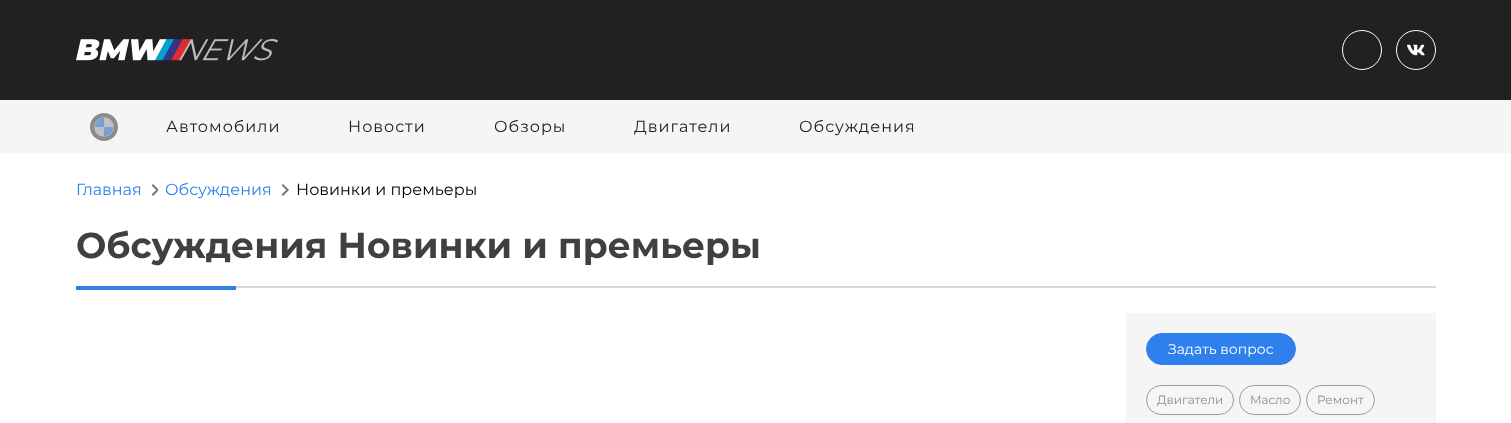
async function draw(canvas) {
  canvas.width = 1511
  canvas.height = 423
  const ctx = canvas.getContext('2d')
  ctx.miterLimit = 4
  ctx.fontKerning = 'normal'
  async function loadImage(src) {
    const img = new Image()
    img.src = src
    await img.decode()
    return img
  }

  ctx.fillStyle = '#fff'
  ctx.fillRect(0, 0, 1511, 423)
  ctx.fillStyle = '#212121'
  ctx.fillRect(0, 0, 1511, 100)
  ctx.drawImage(await loadImage('image0.png'), 76, 39, 203, 22)
  ctx.beginPath()
  ctx.arc(1362, 50, 19.5, 0, 2 * Math.PI)
  ctx.strokeStyle = '#fff'
  ctx.stroke()
  ctx.beginPath()
  ctx.arc(1416, 50, 19.5, 0, 2 * Math.PI)
  ctx.stroke()
  ctx.drawImage(await loadImage('image1.png'), 1407, 44, 18, 12)
  ctx.fillStyle = '#f5f5f5'
  ctx.fillRect(0, 100, 1511, 53)
  ctx.drawImage(await loadImage('image2.png'), 90, 113, 28, 28)
  ctx.letterSpacing = '1px'
  ctx.font = '16px Montserrat'
  ctx.fillStyle = '#212121'
  ctx.fillText('Автомобили', 166, 132)
  ctx.fillText('Новости', 348, 132)
  ctx.fillText('Обзоры', 494, 132)
  ctx.fillText('Двигатели', 634, 132)
  ctx.fillText('Обсуждения', 799, 132)
  ctx.letterSpacing = '0px'
  ctx.fillStyle = '#2f80ed'
  ctx.fillText('Главная', 76, 195)
  ctx.drawImage(await loadImage('image3.png'), 151, 184, 7, 12)
  ctx.fillText('Обсуждения', 165, 195)
  ctx.drawImage(await loadImage('image4.png'), 281, 184, 8, 12)
  ctx.fillStyle = '#000'
  ctx.fillText('Новинки и премьеры', 296, 195)
  ctx.font = 'bold 36px Montserrat'
  ctx.fillStyle = '#404040'
  ctx.fillText('Обсуждения Новинки и премьеры', 76, 258)
  ctx.fillStyle = '#2f80ed'
  ctx.fillRect(76, 286, 160, 4)
  ctx.fillStyle = '#d8d8d8'
  ctx.fillRect(236, 286, 1200, 2)
  ctx.fillStyle = '#f5f5f5'
  ctx.fillRect(1126, 313, 310, 110)
  ctx.fillStyle = '#2f80ed'
  ctx.beginPath()
  ctx.roundRect(1146.5, 333.5, 149, 31, 15.5)
  ctx.fill()
  ctx.strokeStyle = '#2f80ed'
  ctx.stroke()
  ctx.font = '14px Montserrat'
  ctx.fillStyle = '#fff'
  ctx.fillText('Задать вопрос', 1168, 354)
  ctx.beginPath()
  ctx.roundRect(1146.5, 385.5, 87, 29, 14.5)
  ctx.strokeStyle = '#9a9a9a'
  ctx.stroke()
  ctx.font = '12px Montserrat'
  ctx.fillStyle = '#8f8f8f'
  ctx.fillText('Двигатели', 1157, 404)
  ctx.beginPath()
  ctx.roundRect(1239.5, 385.5, 61, 29, 14.5)
  ctx.stroke()
  ctx.fillText('Масло', 1250, 404)
  ctx.beginPath()
  ctx.roundRect(1306.5, 385.5, 68, 29, 14.5)
  ctx.stroke()
  ctx.fillText('Ремонт', 1317, 404)
}

draw(document.querySelector('canvas'))
